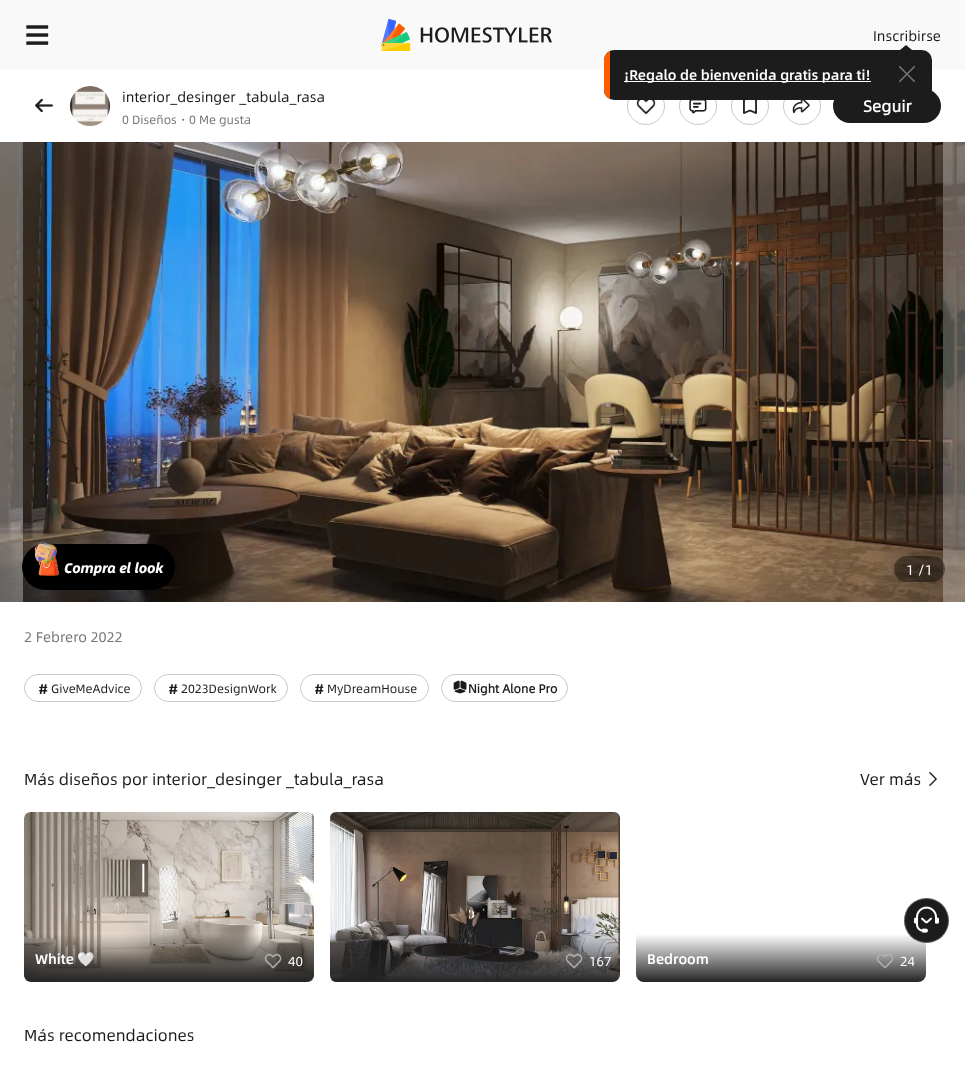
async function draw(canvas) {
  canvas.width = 965
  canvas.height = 1067
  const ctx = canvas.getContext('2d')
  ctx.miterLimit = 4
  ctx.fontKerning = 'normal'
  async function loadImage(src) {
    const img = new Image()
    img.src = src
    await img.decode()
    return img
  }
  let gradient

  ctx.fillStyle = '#fff'
  ctx.fillRect(0, 0, 965, 1067)
  ctx.fillStyle = '#f9f9f9'
  ctx.fillRect(0, 0, 965, 70)
  ctx.drawImage(await loadImage('image0.png'), 26, 25, 23, 20)
  ctx.drawImage(await loadImage('image1.png'), 381, 19, 171, 32)
  ctx.font = '14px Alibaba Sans'
  ctx.fillStyle = '#1c1c1c'
  ctx.fillText('Inscribirse', 873, 41)
  ctx.beginPath()
  ctx.moveTo(912, 50)
  ctx.lineTo(900, 50)
  ctx.lineTo(906, 45)
  ctx.closePath()
  ctx.fill()
  ctx.beginPath()
  ctx.arc(646, 106, 18.5, 0, 2 * Math.PI)
  ctx.strokeStyle = '#cacaca'
  ctx.stroke()
  ctx.beginPath()
  ctx.arc(698, 106, 18.5, 0, 2 * Math.PI)
  ctx.stroke()
  ctx.beginPath()
  ctx.arc(750, 106, 18.5, 0, 2 * Math.PI)
  ctx.stroke()
  ctx.beginPath()
  ctx.arc(802, 106, 18.5, 0, 2 * Math.PI)
  ctx.stroke()
  ctx.beginPath()
  ctx.roundRect(833, 89, 108, 34, 17)
  ctx.fill()
  ctx.beginPath()
  ctx.roundRect(604, 50, 328, 50, 10)
  ctx.fill()
  ctx.save()
  ctx.beginPath()
  ctx.roundRect(604, 50, 328, 50, 10)
  ctx.clip()
  ctx.fillStyle = '#ff5c00'
  ctx.fillRect(604, 50, 6, 50)
  ctx.restore()
  ctx.fillStyle = '#fff'
  ctx.fillRect(624, 81, 247, 1)
  ctx.font = '500 14px Alibaba Sans'
  ctx.fillText('¡Regalo de bienvenida gratis para ti!', 624, 80)
  ctx.drawImage(await loadImage('image2.png'), 899, 66, 16, 17)
  ctx.drawImage(await loadImage('image3.png'), 70, 86, 40, 40)
  ctx.font = '14px Alibaba Sans'
  ctx.fillStyle = '#1c1c1c'
  ctx.fillText('interior_desinger _tabula_rasa', 122, 102)
  ctx.font = '12px Alibaba Sans'
  ctx.fillStyle = '#777'
  ctx.fillText('0 Diseños', 122, 124)
  ctx.font = '500 12px WenQuanYi Zen Hei'
  ctx.fillText('・', 177, 124)
  ctx.font = '12px Alibaba Sans'
  ctx.fillText('0 Me gusta', 189, 124)
  ctx.drawImage(await loadImage('image4.png'), 636, 100, 20, 15)
  ctx.drawImage(await loadImage('image5.png'), 689, 100, 18, 14)
  ctx.drawImage(await loadImage('image6.png'), 743, 100, 14, 14)
  ctx.drawImage(await loadImage('image7.png'), 792, 100, 18, 14)
  ctx.font = 'bold 16px "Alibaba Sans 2"'
  ctx.fillStyle = '#fff'
  ctx.fillText('Seguir', 863, 112)
  ctx.drawImage(await loadImage('image8.png'), 0, 142, 965, 460)
  ctx.drawImage(await loadImage('image9.png'), 23, 142, 920, 460)
  ctx.fillStyle = '#000'
  ctx.beginPath()
  ctx.roundRect(22, 544, 153, 46, 23)
  ctx.fill()
  ctx.drawImage(await loadImage('image17.png'), 38, 557, 22, 19)
  ctx.drawImage(await loadImage('image11.png'), 42, 543, 15, 18)
  ctx.drawImage(await loadImage('image12.png'), 34, 544, 24, 22)
  ctx.drawImage(await loadImage('image16.png'), 42, 545, 7, 17)
  ctx.drawImage(await loadImage('image13.png'), 35, 544, 23, 21)
  ctx.drawImage(await loadImage('image14.png'), 41, 544, 15, 20)
  ctx.drawImage(await loadImage('image15.png'), 35, 545, 22, 17)
  ctx.drawImage(await loadImage('image10.png'), 35, 543, 20, 19)
  ctx.font = 'italic 900 14px Alibaba Sans'
  ctx.fillStyle = '#fff'
  ctx.fillText('Compra el look', 64, 573)
  ctx.fillStyle = '#00000066'
  ctx.beginPath()
  ctx.roundRect(894, 556, 51, 26, 13)
  ctx.fill()
  ctx.font = '14px Alibaba Sans'
  ctx.fillStyle = '#fff'
  ctx.fillText('1 /1', 906, 575)
  ctx.fillStyle = '#777'
  ctx.fillText('2 Febrero 2022', 24, 642)
  ctx.beginPath()
  ctx.roundRect(24.5, 674.5, 117, 27, 13.5)
  ctx.stroke()
  ctx.font = 'bold 14px Alibaba Sans'
  ctx.fillStyle = '#1c1c1c'
  ctx.fillText('#', 39, 694)
  ctx.font = '12px Alibaba Sans'
  ctx.fillText('GiveMeAdvice', 51, 693)
  ctx.beginPath()
  ctx.roundRect(154.5, 674.5, 133, 27, 13.5)
  ctx.stroke()
  ctx.font = 'bold 14px Alibaba Sans'
  ctx.fillText('#', 169, 694)
  ctx.font = '12px Alibaba Sans'
  ctx.fillText('2023DesignWork', 181, 693)
  ctx.beginPath()
  ctx.roundRect(300.5, 674.5, 128, 27, 13.5)
  ctx.stroke()
  ctx.font = 'bold 14px Alibaba Sans'
  ctx.fillText('#', 315, 694)
  ctx.font = '12px Alibaba Sans'
  ctx.fillText('MyDreamHouse', 327, 693)
  ctx.beginPath()
  ctx.roundRect(441.5, 674.5, 126, 27, 13.5)
  ctx.stroke()
  ctx.drawImage(await loadImage('image18.png'), 453, 680, 14, 14)
  ctx.font = 'bold 12px "Alibaba Sans 2"'
  ctx.fillText('Night Alone Pro', 468, 693)
  ctx.font = '16px Alibaba Sans'
  ctx.fillText('Más diseños por interior_desinger _tabula_rasa', 24, 785)
  ctx.fillText('Ver más', 860, 785)
  ctx.drawImage(await loadImage('image19.png'), 929, 772, 8, 14)
  ctx.drawImage(await loadImage('image20.png'), 24, 812, 290, 170)
  gradient = ctx.createLinearGradient(169, 934, 169, 982)
  gradient.addColorStop(0, '#24242400')
  gradient.addColorStop(1, '#242424')
  ctx.fillStyle = gradient
  ctx.beginPath()
  ctx.roundRect(24, 934, 290, 48, [0, 0, 8, 8])
  ctx.fill()
  ctx.font = '500 14px Alibaba Sans'
  ctx.fillStyle = '#fff'
  ctx.fillText('White', 35, 964)
  ctx.font = '14px Noto Color Emoji'
  ctx.fillText('🤍', 77, 964)
  ctx.drawImage(await loadImage('image21.png'), 264, 953, 18, 16)
  ctx.font = '13px Alibaba Sans'
  ctx.fillText('40', 288, 966)
  ctx.drawImage(await loadImage('image22.png'), 330, 812, 290, 170)
  gradient = ctx.createLinearGradient(475, 934, 475, 982)
  gradient.addColorStop(0, '#24242400')
  gradient.addColorStop(1, '#242424')
  ctx.fillStyle = gradient
  ctx.beginPath()
  ctx.roundRect(330, 934, 290, 48, [0, 0, 8, 8])
  ctx.fill()
  ctx.drawImage(await loadImage('image23.png'), 565, 953, 18, 16)
  ctx.fillStyle = '#fff'
  ctx.fillText('167', 589, 966)
  gradient = ctx.createLinearGradient(781, 934, 781, 982)
  gradient.addColorStop(0, '#fff')
  gradient.addColorStop(1, '#242424')
  ctx.fillStyle = gradient
  ctx.beginPath()
  ctx.roundRect(636, 934, 290, 48, [0, 0, 8, 8])
  ctx.fill()
  ctx.font = '500 14px Alibaba Sans'
  ctx.fillStyle = '#fff'
  ctx.fillText('Bedroom', 647, 964)
  ctx.drawImage(await loadImage('image24.png'), 876, 954, 18, 15)
  ctx.font = '13px Alibaba Sans'
  ctx.fillText('24', 900, 966)
  ctx.font = '16px Alibaba Sans'
  ctx.fillStyle = '#1c1c1c'
  ctx.fillText('Más recomendaciones', 24, 1041)
  ctx.drawImage(await loadImage('image25.png'), 35, 98, 18, 15)
  ctx.beginPath()
  ctx.arc(926.5, 920.5, 22.5, 0, 2 * Math.PI)
  ctx.fill()
  ctx.beginPath()
  ctx.arc(926.5, 920.5, 22, 0, 2 * Math.PI)
  ctx.strokeStyle = '#ffffff4d'
  ctx.stroke()
  ctx.drawImage(await loadImage('image26.png'), 914, 906, 25, 27)
}

draw(document.querySelector('canvas'))
